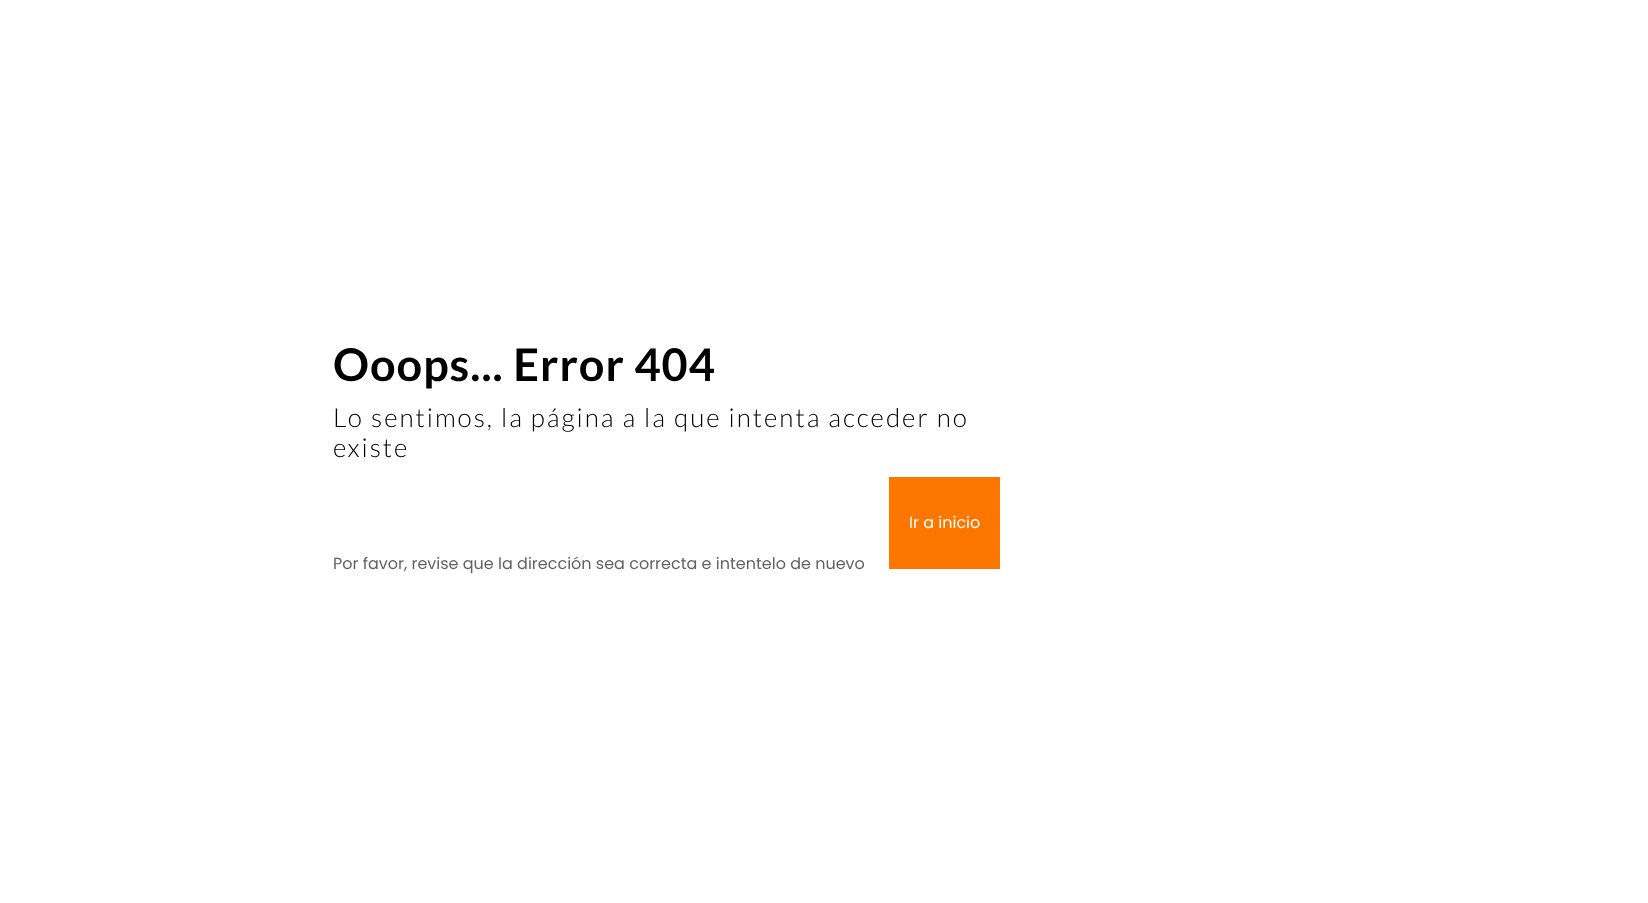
async function draw(canvas) {
  canvas.width = 1648
  canvas.height = 903
  const ctx = canvas.getContext('2d')
  ctx.miterLimit = 4
  ctx.fontKerning = 'normal'

  ctx.fillStyle = '#fff'
  ctx.fillRect(0, 0, 1648, 903)
  ctx.letterSpacing = '1px'
  ctx.font = 'bold 45px Lato'
  ctx.fillStyle = '#000'
  ctx.fillText('Ooops... Error 404', 333, 381)
  ctx.letterSpacing = '2px'
  ctx.font = '300 26px Lato'
  ctx.fillText('Lo sentimos, la página a la que intenta acceder no', 333, 427)
  ctx.fillText('existe', 333, 457)
  ctx.fillStyle = '#fc7600'
  ctx.fillRect(889, 477, 111, 92)
  ctx.letterSpacing = '0px'
  ctx.font = '16px Poppins'
  ctx.fillStyle = '#fff'
  ctx.fillText('Ir a inicio', 909, 528)
  ctx.fillStyle = '#626262'
  ctx.fillText('Por favor, revise que la dirección sea correcta e intentelo de nuevo', 333, 569)
}

draw(document.querySelector('canvas'))
